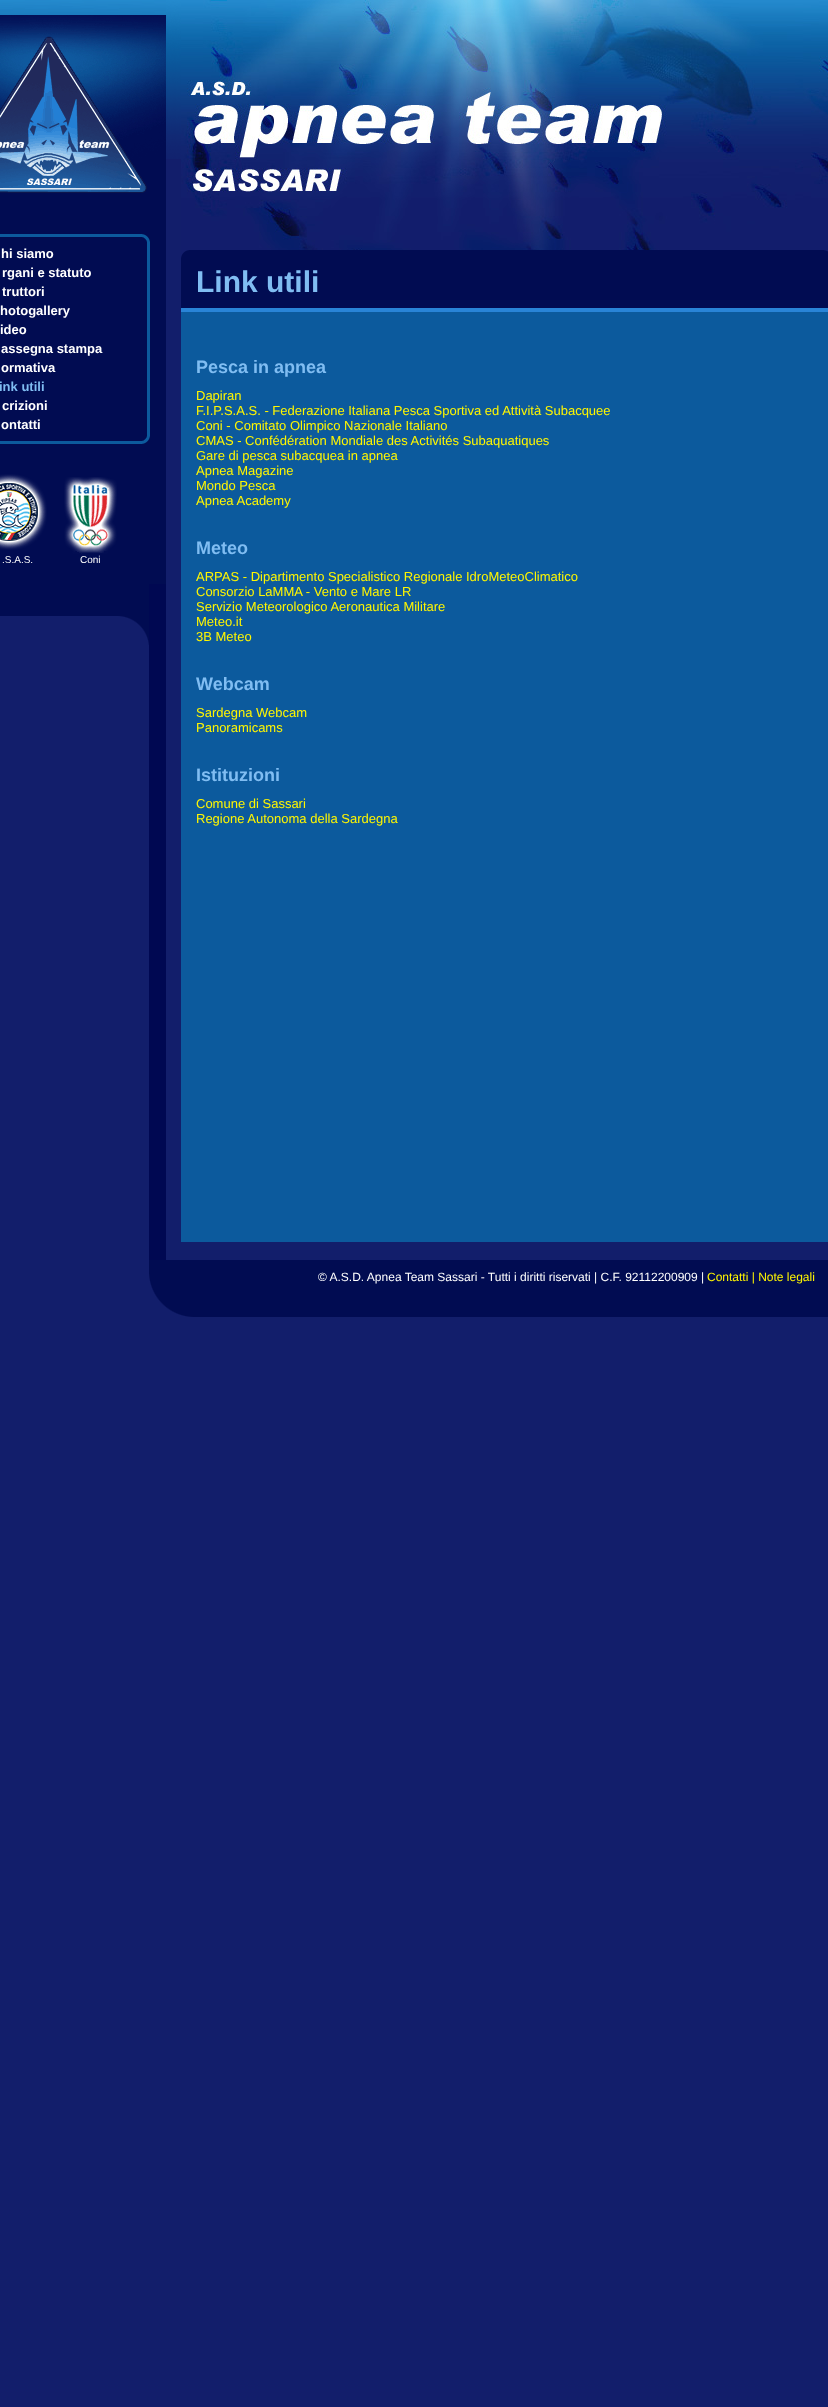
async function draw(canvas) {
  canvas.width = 828
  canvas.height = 2407
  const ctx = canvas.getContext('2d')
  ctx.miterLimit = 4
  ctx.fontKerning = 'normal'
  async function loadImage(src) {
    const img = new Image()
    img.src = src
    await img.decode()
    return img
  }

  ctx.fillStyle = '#121e6b'
  ctx.fillRect(0, 0, 828, 2407)
  ctx.drawImage(await loadImage('image0.png'), 166, 0, 15, 159)
  ctx.fillStyle = '#000852'
  ctx.fillRect(149, 584, 17, 676)
  ctx.fillStyle = '#010c52'
  ctx.fillRect(0, 193, 166, 391)
  ctx.drawImage(await loadImage('image1.png'), 0, 0, 166, 193)
  ctx.drawImage(await loadImage('image2.png'), 0, 234, 150, 10)
  ctx.fillStyle = '#0c5a9d'
  ctx.fillRect(147, 244, 3, 190)
  ctx.font = 'bold 13px Liberation Sans'
  ctx.fillStyle = '#fff'
  ctx.fillText('hi siamo', 1, 258)
  ctx.fillText('rgani e statuto', 2, 277)
  ctx.fillText('truttori', 2, 296)
  ctx.fillText('hotogallery', 0, 315)
  ctx.fillText('ideo', 0, 334)
  ctx.fillText('assegna stampa', 1, 353)
  ctx.fillText('ormativa', 1, 372)
  ctx.fillStyle = '#80bdf2'
  ctx.fillText('ink utili', -1, 391)
  ctx.fillStyle = '#fff'
  ctx.fillText('crizioni', 2, 410)
  ctx.fillText('ontatti', 1, 429)
  ctx.drawImage(await loadImage('image3.png'), 0, 434, 150, 10)
  ctx.drawImage(await loadImage('image4.png'), 0, 474, 47, 76)
  ctx.font = '10px Liberation Sans'
  ctx.fillText('.S.A.S.', 2, 563)
  ctx.drawImage(await loadImage('image5.png'), 64, 477, 53, 77)
  ctx.fillText('Coni', 80, 563)
  ctx.drawImage(await loadImage('image6.png'), 0, 584, 149, 61)
  ctx.drawImage(await loadImage('image7.png'), 181, 0, 647, 255)
  ctx.drawImage(await loadImage('image8.png'), 181, 250, 647, 62)
  ctx.font = 'bold 30px Liberation Sans'
  ctx.fillStyle = '#80bdf2'
  ctx.fillText('Link utili', 196, 292)
  ctx.fillStyle = '#0c5a9d'
  ctx.fillRect(181, 312, 647, 930)
  ctx.font = 'bold 18px Liberation Sans'
  ctx.fillStyle = '#80bdf2'
  ctx.fillText('Pesca in apnea', 196, 373)
  ctx.font = '13px Liberation Sans'
  ctx.fillStyle = '#fff600'
  ctx.fillText('Dapiran', 196, 400)
  ctx.fillText('F.I.P.S.A.S. - Federazione Italiana Pesca Sportiva ed Attività Subacquee', 196, 415)
  ctx.fillText('Coni - Comitato Olimpico Nazionale Italiano', 196, 430)
  ctx.fillText('CMAS - Confédération Mondiale des Activités Subaquatiques', 196, 445)
  ctx.fillText('Gare di pesca subacquea in apnea', 196, 460)
  ctx.fillText('Apnea Magazine', 196, 475)
  ctx.fillText('Mondo Pesca', 196, 490)
  ctx.fillText('Apnea Academy', 196, 505)
  ctx.font = 'bold 18px Liberation Sans'
  ctx.fillStyle = '#80bdf2'
  ctx.fillText('Meteo', 196, 554)
  ctx.font = '13px Liberation Sans'
  ctx.fillStyle = '#fff600'
  ctx.fillText('ARPAS - Dipartimento Specialistico Regionale IdroMeteoClimatico', 196, 581)
  ctx.fillText('Consorzio LaMMA - Vento e Mare LR', 196, 596)
  ctx.fillText('Servizio Meteorologico Aeronautica Militare', 196, 611)
  ctx.fillText('Meteo.it', 196, 626)
  ctx.fillText('3B Meteo', 196, 641)
  ctx.font = 'bold 18px Liberation Sans'
  ctx.fillStyle = '#80bdf2'
  ctx.fillText('Webcam', 196, 690)
  ctx.font = '13px Liberation Sans'
  ctx.fillStyle = '#fff600'
  ctx.fillText('Sardegna Webcam', 196, 717)
  ctx.fillText('Panoramicams', 196, 732)
  ctx.font = 'bold 18px Liberation Sans'
  ctx.fillStyle = '#80bdf2'
  ctx.fillText('Istituzioni', 196, 781)
  ctx.font = '13px Liberation Sans'
  ctx.fillStyle = '#fff600'
  ctx.fillText('Comune di Sassari', 196, 808)
  ctx.fillText('Regione Autonoma della Sardegna', 196, 823)
  ctx.drawImage(await loadImage('image9.png'), 149, 1260, 679, 57)
  ctx.font = '12px Liberation Sans'
  ctx.fillStyle = '#fff'
  ctx.fillText('© A.S.D. Apnea Team Sassari - Tutti i diritti riservati | C.F. 92112200909 |', 318, 1281)
  ctx.fillStyle = '#fff600'
  ctx.fillText('Contatti | Note legali', 707, 1281)
}

draw(document.querySelector('canvas'))
